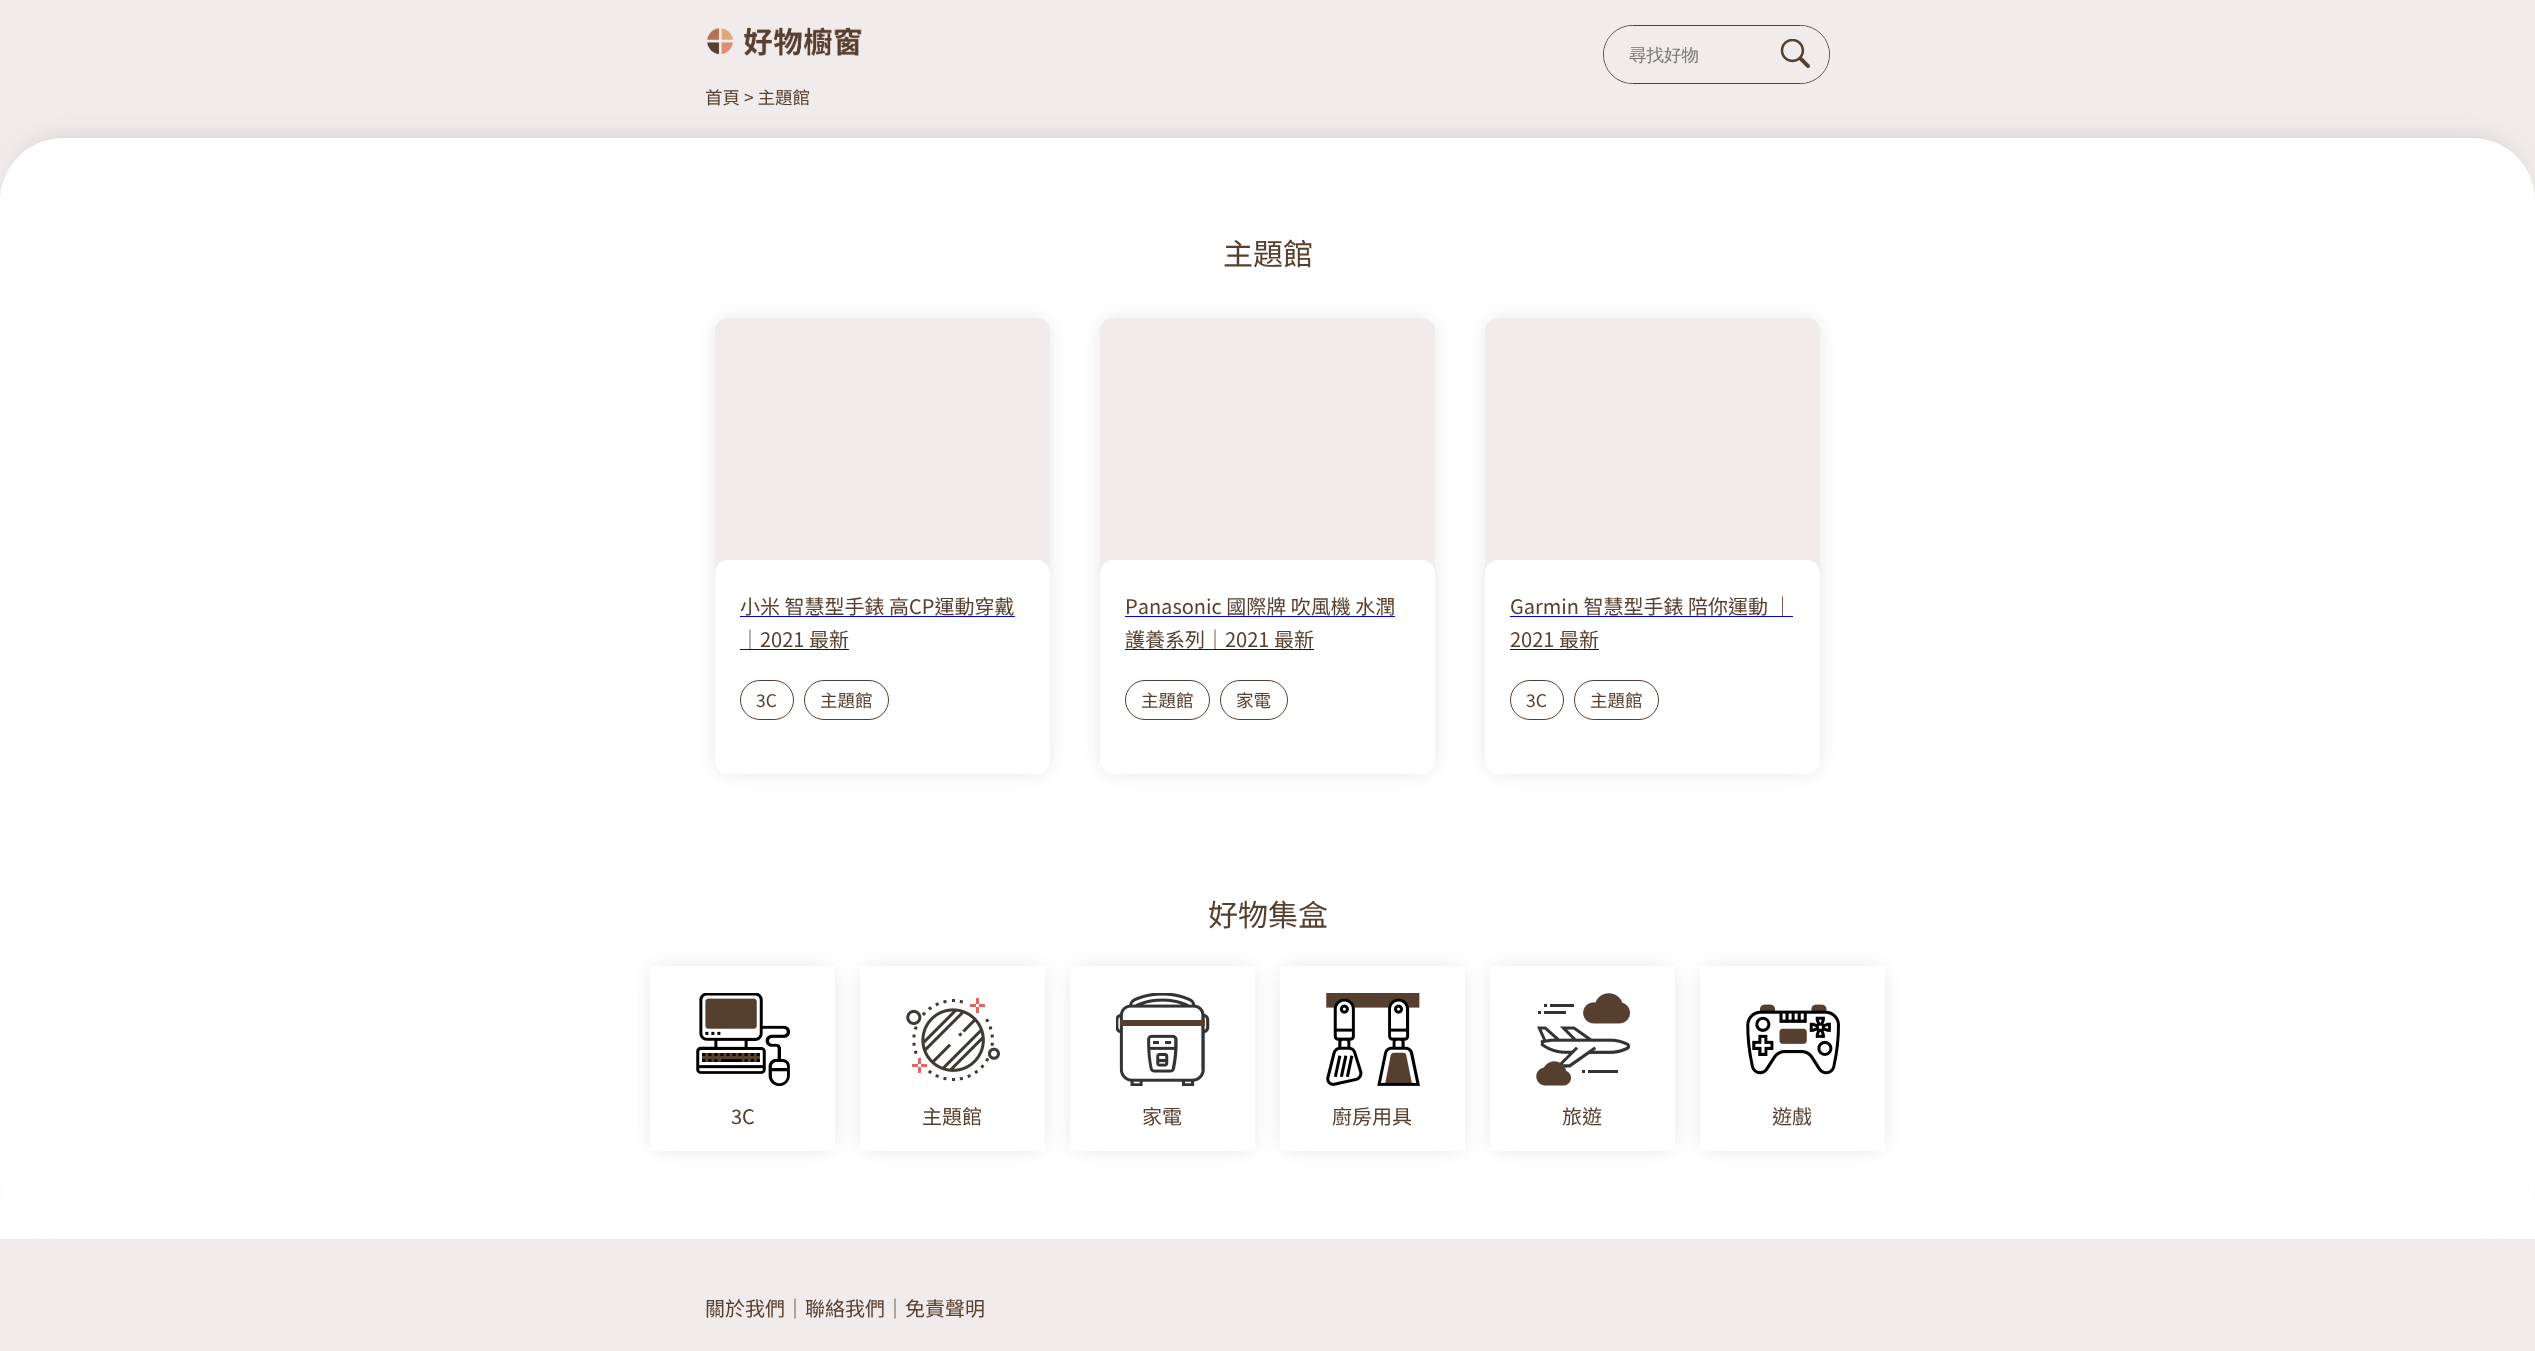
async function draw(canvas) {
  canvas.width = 2535
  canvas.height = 1351
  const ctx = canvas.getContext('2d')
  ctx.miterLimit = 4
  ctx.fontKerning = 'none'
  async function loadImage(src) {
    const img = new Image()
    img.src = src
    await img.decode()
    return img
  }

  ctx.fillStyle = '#fff'
  ctx.fillRect(0, 0, 2535, 1351)
  ctx.fillStyle = '#f1eceb'
  ctx.fillRect(0, 0, 2535, 201)
  ctx.beginPath()
  ctx.roundRect(1603.5, 25.5, 226, 58, 29)
  ctx.strokeStyle = '#563f2e'
  ctx.stroke()
  ctx.beginPath()
  ctx.roundRect(1604, 26, 225, 57, 28.5)
  ctx.fill()
  ctx.font = '500 17.5px WenQuanYi Zen Hei'
  ctx.fillStyle = '#757575'
  ctx.fillText('尋找好物', 1629, 61)
  ctx.drawImage(await loadImage('image0.png'), 1780, 39, 30, 29)
  ctx.drawImage(await loadImage('image1.png'), 707, 27, 155, 29)
  ctx.font = '17.5px Noto Sans TC'
  ctx.fillStyle = '#563f2e'
  ctx.fillText('首頁 > 主題館', 705, 104)
  ctx.fillStyle = '#f1eceb'
  ctx.fillRect(0, 1239, 2535, 112)
  ctx.fillStyle = '#c7c7c7b0'
  ctx.filter = 'blur(12.5px)'
  ctx.beginPath()
  ctx.roundRect(13, 138, 2510, 1076, 50)
  ctx.fill()
  ctx.filter = 'none'
  ctx.fillStyle = '#fff'
  ctx.beginPath()
  ctx.roundRect(0, 138, 2535, 1101, 63)
  ctx.fill()
  ctx.font = '30px Noto Sans TC'
  ctx.fillStyle = '#563f2e'
  ctx.fillText('主題館', 1223, 265)
  ctx.fillStyle = '#c7c7c7b0'
  ctx.filter = 'blur(10.5px)'
  ctx.beginPath()
  ctx.roundRect(720, 323, 325, 446, 8)
  ctx.fill()
  ctx.filter = 'none'
  ctx.fillStyle = '#f1eceb'
  ctx.beginPath()
  ctx.roundRect(715, 318, 335, 456, 13)
  ctx.fill()
  ctx.fillStyle = '#fff'
  ctx.beginPath()
  ctx.roundRect(715, 560, 335, 214, 13)
  ctx.fill()
  ctx.font = '20px Noto Sans TC'
  ctx.fillStyle = '#563f2e'
  ctx.fillText('小米 智慧型手錶 高CP運動穿戴', 740, 614)
  ctx.fillStyle = '#00e'
  ctx.fillRect(740, 616, 275, 1)
  ctx.fillRect(740, 649, 109, 1)
  ctx.fillStyle = '#563f2e'
  ctx.fillText('｜2021 最新', 740, 647)
  ctx.beginPath()
  ctx.roundRect(740.5, 680.5, 53, 39, 19.5)
  ctx.stroke()
  ctx.font = '17.5px Noto Sans TC'
  ctx.fillText('3C', 756, 707)
  ctx.beginPath()
  ctx.roundRect(804.5, 680.5, 84, 39, 19.5)
  ctx.stroke()
  ctx.fillText('主題館', 820, 707)
  ctx.fillStyle = '#c7c7c7b0'
  ctx.filter = 'blur(10.5px)'
  ctx.beginPath()
  ctx.roundRect(1105, 323, 325, 446, 8)
  ctx.fill()
  ctx.filter = 'none'
  ctx.fillStyle = '#f1eceb'
  ctx.beginPath()
  ctx.roundRect(1100, 318, 335, 456, 13)
  ctx.fill()
  ctx.fillStyle = '#fff'
  ctx.beginPath()
  ctx.roundRect(1100, 560, 335, 214, 13)
  ctx.fill()
  ctx.font = '20px Noto Sans TC'
  ctx.fillStyle = '#563f2e'
  ctx.fillText('Panasonic 國際牌 吹風機 水潤', 1125, 614)
  ctx.fillStyle = '#00e'
  ctx.fillRect(1125, 616, 270, 1)
  ctx.fillRect(1125, 649, 189, 1)
  ctx.fillStyle = '#563f2e'
  ctx.fillText('護養系列｜2021 最新', 1125, 647)
  ctx.beginPath()
  ctx.roundRect(1125.5, 680.5, 84, 39, 19.5)
  ctx.stroke()
  ctx.font = '17.5px Noto Sans TC'
  ctx.fillText('主題館', 1141, 707)
  ctx.beginPath()
  ctx.roundRect(1220.5, 680.5, 67, 39, 19.5)
  ctx.stroke()
  ctx.fillText('家電', 1236, 707)
  ctx.fillStyle = '#c7c7c7b0'
  ctx.filter = 'blur(10.5px)'
  ctx.beginPath()
  ctx.roundRect(1490, 323, 325, 446, 8)
  ctx.fill()
  ctx.filter = 'none'
  ctx.fillStyle = '#f1eceb'
  ctx.beginPath()
  ctx.roundRect(1485, 318, 335, 456, 13)
  ctx.fill()
  ctx.fillStyle = '#fff'
  ctx.beginPath()
  ctx.roundRect(1485, 560, 335, 214, 13)
  ctx.fill()
  ctx.fillStyle = '#00e'
  ctx.fillRect(1510, 616, 283, 1)
  ctx.font = '20px Noto Sans TC'
  ctx.fillStyle = '#563f2e'
  ctx.fillText('Garmin 智慧型手錶 陪你運動 ｜', 1510, 614)
  ctx.fillText('2021 最新', 1510, 647)
  ctx.fillStyle = '#00e'
  ctx.fillRect(1510, 649, 89, 1)
  ctx.beginPath()
  ctx.roundRect(1510.5, 680.5, 53, 39, 19.5)
  ctx.stroke()
  ctx.font = '17.5px Noto Sans TC'
  ctx.fillStyle = '#563f2e'
  ctx.fillText('3C', 1526, 707)
  ctx.beginPath()
  ctx.roundRect(1574.5, 680.5, 84, 39, 19.5)
  ctx.stroke()
  ctx.fillText('主題館', 1590, 707)
  ctx.font = '30px Noto Sans TC'
  ctx.fillText('好物集盒', 1208, 926)
  ctx.save()
  ctx.beginPath()
  ctx.moveTo(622, 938)
  ctx.lineTo(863, 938)
  ctx.lineTo(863, 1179)
  ctx.lineTo(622, 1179)
  ctx.closePath()
  ctx.moveTo(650, 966)
  ctx.lineTo(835, 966)
  ctx.lineTo(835, 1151)
  ctx.lineTo(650, 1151)
  ctx.closePath()
  ctx.clip('evenodd')
  ctx.fillStyle = '#c7c7c7b0'
  ctx.filter = 'blur(10.5px)'
  ctx.beginPath()
  ctx.rect(655, 971, 175, 175)
  ctx.fill()
  ctx.filter = 'none'
  ctx.restore()
  ctx.drawImage(await loadImage('image2.png'), 696, 993, 94, 93)
  ctx.font = '20px Noto Sans TC'
  ctx.fillText('3C', 731, 1124)
  ctx.save()
  ctx.beginPath()
  ctx.moveTo(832, 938)
  ctx.lineTo(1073, 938)
  ctx.lineTo(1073, 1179)
  ctx.lineTo(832, 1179)
  ctx.closePath()
  ctx.moveTo(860, 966)
  ctx.lineTo(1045, 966)
  ctx.lineTo(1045, 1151)
  ctx.lineTo(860, 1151)
  ctx.closePath()
  ctx.clip('evenodd')
  ctx.fillStyle = '#c7c7c7b0'
  ctx.filter = 'blur(10.5px)'
  ctx.beginPath()
  ctx.rect(865, 971, 175, 175)
  ctx.fill()
  ctx.filter = 'none'
  ctx.restore()
  ctx.drawImage(await loadImage('image3.png'), 906, 998, 94, 83)
  ctx.fillText('主題館', 922, 1124)
  ctx.save()
  ctx.beginPath()
  ctx.moveTo(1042, 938)
  ctx.lineTo(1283, 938)
  ctx.lineTo(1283, 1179)
  ctx.lineTo(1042, 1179)
  ctx.closePath()
  ctx.moveTo(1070, 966)
  ctx.lineTo(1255, 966)
  ctx.lineTo(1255, 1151)
  ctx.lineTo(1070, 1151)
  ctx.closePath()
  ctx.clip('evenodd')
  ctx.fillStyle = '#c7c7c7b0'
  ctx.filter = 'blur(10.5px)'
  ctx.beginPath()
  ctx.rect(1075, 971, 175, 175)
  ctx.fill()
  ctx.filter = 'none'
  ctx.restore()
  ctx.drawImage(await loadImage('image4.png'), 1116, 993, 94, 93)
  ctx.fillText('家電', 1142, 1124)
  ctx.save()
  ctx.beginPath()
  ctx.moveTo(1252, 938)
  ctx.lineTo(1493, 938)
  ctx.lineTo(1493, 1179)
  ctx.lineTo(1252, 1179)
  ctx.closePath()
  ctx.moveTo(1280, 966)
  ctx.lineTo(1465, 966)
  ctx.lineTo(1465, 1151)
  ctx.lineTo(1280, 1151)
  ctx.closePath()
  ctx.clip('evenodd')
  ctx.fillStyle = '#c7c7c7b0'
  ctx.filter = 'blur(10.5px)'
  ctx.beginPath()
  ctx.rect(1285, 971, 175, 175)
  ctx.fill()
  ctx.filter = 'none'
  ctx.restore()
  ctx.drawImage(await loadImage('image5.png'), 1326, 993, 94, 93)
  ctx.fillText('廚房用具', 1332, 1124)
  ctx.save()
  ctx.beginPath()
  ctx.moveTo(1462, 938)
  ctx.lineTo(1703, 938)
  ctx.lineTo(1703, 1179)
  ctx.lineTo(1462, 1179)
  ctx.closePath()
  ctx.moveTo(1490, 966)
  ctx.lineTo(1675, 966)
  ctx.lineTo(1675, 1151)
  ctx.lineTo(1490, 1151)
  ctx.closePath()
  ctx.clip('evenodd')
  ctx.fillStyle = '#c7c7c7b0'
  ctx.filter = 'blur(10.5px)'
  ctx.beginPath()
  ctx.rect(1495, 971, 175, 175)
  ctx.fill()
  ctx.filter = 'none'
  ctx.restore()
  ctx.drawImage(await loadImage('image6.png'), 1536, 993, 94, 93)
  ctx.fillText('旅遊', 1562, 1124)
  ctx.save()
  ctx.beginPath()
  ctx.moveTo(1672, 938)
  ctx.lineTo(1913, 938)
  ctx.lineTo(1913, 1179)
  ctx.lineTo(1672, 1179)
  ctx.closePath()
  ctx.moveTo(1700, 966)
  ctx.lineTo(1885, 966)
  ctx.lineTo(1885, 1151)
  ctx.lineTo(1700, 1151)
  ctx.closePath()
  ctx.clip('evenodd')
  ctx.fillStyle = '#c7c7c7b0'
  ctx.filter = 'blur(10.5px)'
  ctx.beginPath()
  ctx.rect(1705, 971, 175, 175)
  ctx.fill()
  ctx.filter = 'none'
  ctx.restore()
  ctx.drawImage(await loadImage('image7.png'), 1746, 1004, 94, 71)
  ctx.fillText('遊戲', 1772, 1124)
  ctx.fillText('關於我們｜聯絡我們｜免責聲明', 705, 1316)
}

draw(document.querySelector('canvas'))
